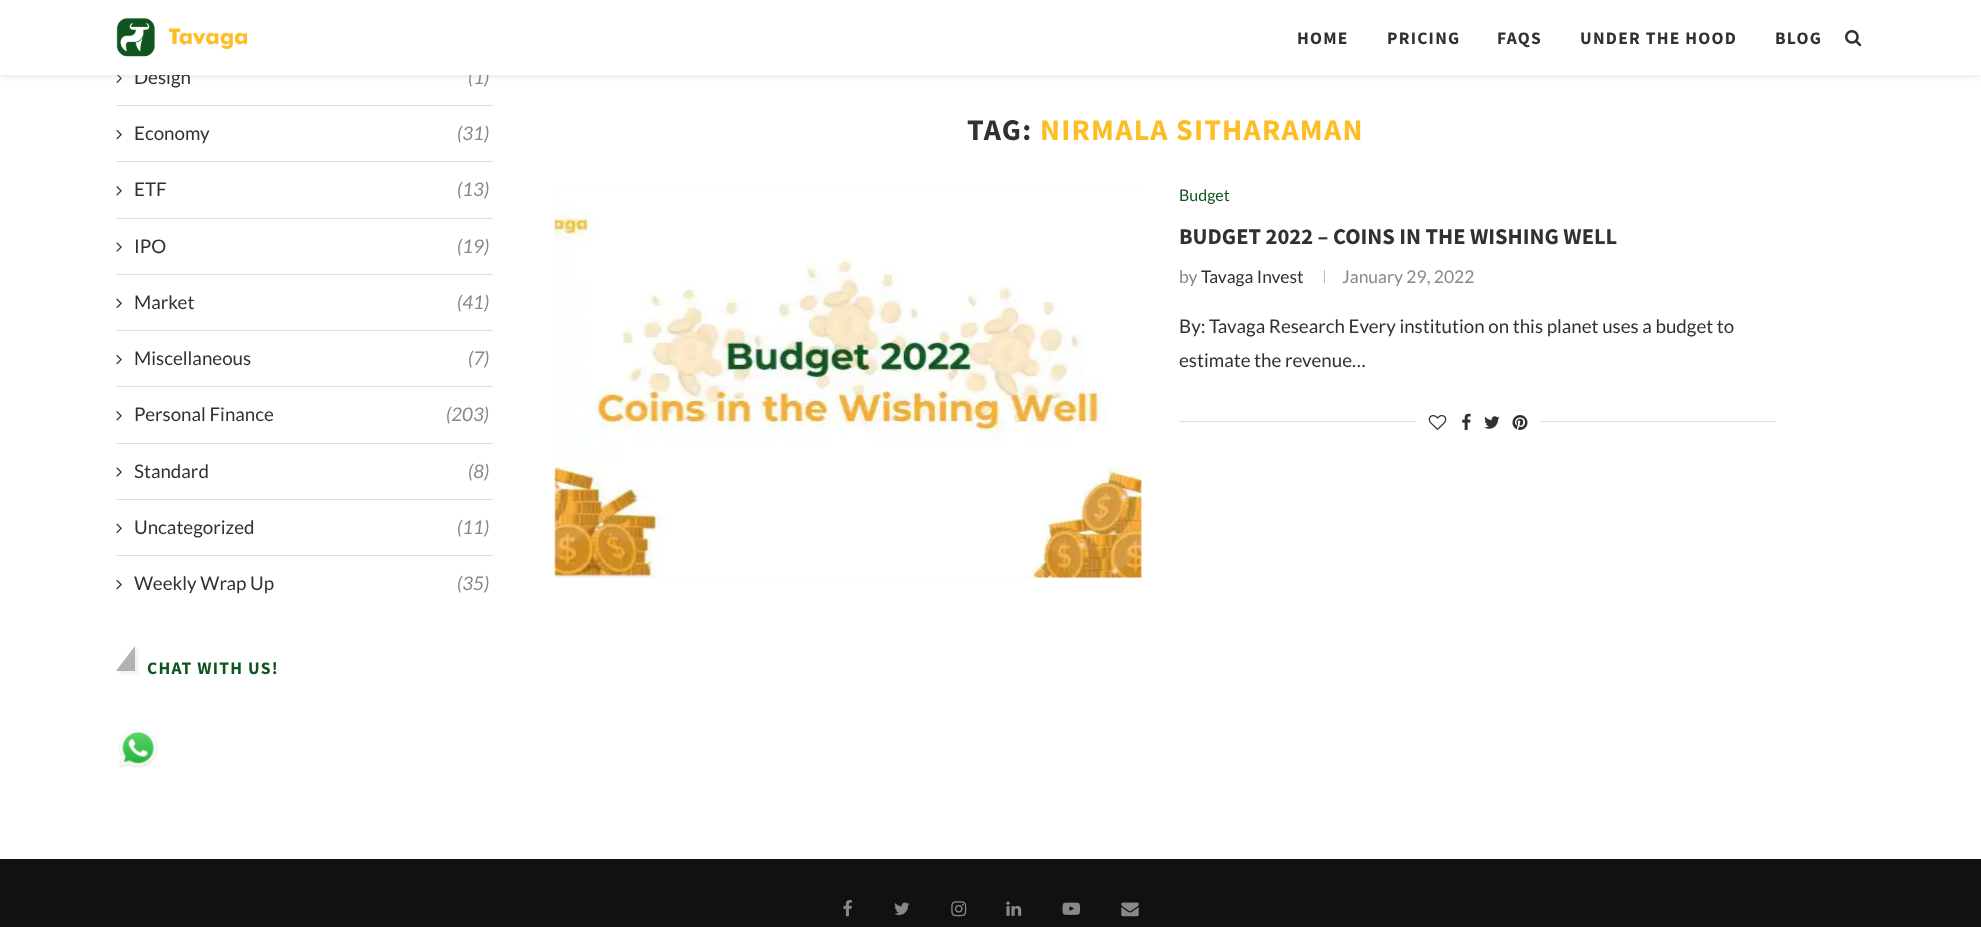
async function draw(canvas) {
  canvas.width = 1981
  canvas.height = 927
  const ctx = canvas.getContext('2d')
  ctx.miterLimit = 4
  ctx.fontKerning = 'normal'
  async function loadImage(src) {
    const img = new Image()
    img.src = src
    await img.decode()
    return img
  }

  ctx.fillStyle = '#fff'
  ctx.fillRect(0, 0, 1981, 927)
  ctx.drawImage(await loadImage('image2.png'), 116, 75, 6, 8)
  ctx.fillStyle = '#bebebe75'
  ctx.filter = 'blur(3px)'
  ctx.beginPath()
  ctx.rect(0, 1, 1981, 75)
  ctx.fill()
  ctx.filter = 'none'
  ctx.font = '18.75px Lato'
  ctx.fillStyle = '#313131'
  ctx.fillText('Design', 134, 84)
  ctx.font = 'italic 18.75px Lato'
  ctx.fillStyle = '#888'
  ctx.fillText('(1)', 468, 84)
  ctx.fillStyle = '#fff'
  ctx.fillRect(0, 0, 1981, 75)
  ctx.drawImage(await loadImage('image0.png'), 116, 17, 132, 40)
  ctx.letterSpacing = '1.25px'
  ctx.font = 'bold 17.5px Source Sans Pro'
  ctx.fillStyle = '#313131'
  ctx.fillText('HOME', 1297, 44)
  ctx.fillText('PRICING', 1387, 44)
  ctx.fillText('FAQS', 1497, 44)
  ctx.fillText('UNDER THE HOOD', 1580, 44)
  ctx.fillText('BLOG', 1775, 44)
  ctx.drawImage(await loadImage('image1.png'), 1845, 30, 17, 17)
  ctx.fillStyle = '#dedede'
  ctx.fillRect(116, 105, 377, 1)
  ctx.fillRect(116, 161, 377, 1)
  ctx.drawImage(await loadImage('image3.png'), 116, 129, 6, 11)
  ctx.letterSpacing = '0px'
  ctx.font = '18.75px Lato'
  ctx.fillStyle = '#313131'
  ctx.fillText('Economy', 134, 140)
  ctx.font = 'italic 18.75px Lato'
  ctx.fillStyle = '#888'
  ctx.fillText('(31)', 457, 140)
  ctx.fillStyle = '#dedede'
  ctx.fillRect(116, 218, 377, 1)
  ctx.drawImage(await loadImage('image4.png'), 116, 186, 6, 10)
  ctx.font = '18.75px Lato'
  ctx.fillStyle = '#313131'
  ctx.fillText('ETF', 134, 196)
  ctx.font = 'italic 18.75px Lato'
  ctx.fillStyle = '#888'
  ctx.fillText('(13)', 457, 196)
  ctx.fillStyle = '#dedede'
  ctx.fillRect(116, 274, 377, 1)
  ctx.drawImage(await loadImage('image5.png'), 116, 242, 6, 10)
  ctx.font = '18.75px Lato'
  ctx.fillStyle = '#313131'
  ctx.fillText('IPO', 134, 253)
  ctx.font = 'italic 18.75px Lato'
  ctx.fillStyle = '#888'
  ctx.fillText('(19)', 457, 253)
  ctx.fillStyle = '#dedede'
  ctx.fillRect(116, 330, 377, 1)
  ctx.drawImage(await loadImage('image6.png'), 116, 298, 6, 10)
  ctx.font = '18.75px Lato'
  ctx.fillStyle = '#313131'
  ctx.fillText('Market', 134, 309)
  ctx.font = 'italic 18.75px Lato'
  ctx.fillStyle = '#888'
  ctx.fillText('(41)', 457, 309)
  ctx.fillStyle = '#dedede'
  ctx.fillRect(116, 386, 377, 1)
  ctx.drawImage(await loadImage('image3.png'), 116, 354, 6, 11)
  ctx.font = '18.75px Lato'
  ctx.fillStyle = '#313131'
  ctx.fillText('Miscellaneous', 134, 365)
  ctx.font = 'italic 18.75px Lato'
  ctx.fillStyle = '#888'
  ctx.fillText('(7)', 468, 365)
  ctx.fillStyle = '#dedede'
  ctx.fillRect(116, 443, 377, 1)
  ctx.drawImage(await loadImage('image4.png'), 116, 411, 6, 10)
  ctx.font = '18.75px Lato'
  ctx.fillStyle = '#313131'
  ctx.fillText('Personal Finance', 134, 421)
  ctx.font = 'italic 18.75px Lato'
  ctx.fillStyle = '#888'
  ctx.fillText('(203)', 446, 421)
  ctx.fillStyle = '#dedede'
  ctx.fillRect(116, 499, 377, 1)
  ctx.drawImage(await loadImage('image5.png'), 116, 467, 6, 10)
  ctx.font = '18.75px Lato'
  ctx.fillStyle = '#313131'
  ctx.fillText('Standard', 134, 478)
  ctx.font = 'italic 18.75px Lato'
  ctx.fillStyle = '#888'
  ctx.fillText('(8)', 468, 478)
  ctx.fillStyle = '#dedede'
  ctx.fillRect(116, 555, 377, 1)
  ctx.drawImage(await loadImage('image6.png'), 116, 523, 6, 10)
  ctx.font = '18.75px Lato'
  ctx.fillStyle = '#313131'
  ctx.fillText('Uncategorized', 134, 534)
  ctx.font = 'italic 18.75px Lato'
  ctx.fillStyle = '#888'
  ctx.fillText('(11)', 457, 534)
  ctx.drawImage(await loadImage('image3.png'), 116, 579, 6, 11)
  ctx.font = '18.75px Lato'
  ctx.fillStyle = '#313131'
  ctx.fillText('Weekly Wrap Up', 134, 590)
  ctx.font = 'italic 18.75px Lato'
  ctx.fillStyle = '#888'
  ctx.fillText('(35)', 457, 590)
  ctx.save()
  ctx.beginPath()
  ctx.moveTo(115, 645)
  ctx.lineTo(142, 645)
  ctx.lineTo(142, 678)
  ctx.lineTo(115, 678)
  ctx.closePath()
  ctx.moveTo(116, 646)
  ctx.lineTo(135, 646)
  ctx.lineTo(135, 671)
  ctx.lineTo(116, 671)
  ctx.closePath()
  ctx.clip('evenodd')
  ctx.fillStyle = '#0000000d'
  ctx.filter = 'blur(1px)'
  ctx.beginPath()
  ctx.rect(119, 649, 19, 25)
  ctx.fill()
  ctx.filter = 'none'
  ctx.restore()
  ctx.fillStyle = '#b2b2b2'
  ctx.beginPath()
  ctx.moveTo(135, 671)
  ctx.lineTo(116, 671)
  ctx.lineTo(135, 646)
  ctx.closePath()
  ctx.fill()
  ctx.letterSpacing = '1.25px'
  ctx.font = 'bold 17.5px Source Sans Pro'
  ctx.fillStyle = '#10551f'
  ctx.fillText('CHAT WITH US!', 147, 674)
  ctx.drawImage(await loadImage('image7.png'), 118, 729, 40, 39)
  ctx.font = 'bold 30px Source Sans Pro'
  ctx.fillStyle = '#313131'
  ctx.fillText('TAG:', 967, 140)
  ctx.fillStyle = '#fcbd25'
  ctx.fillText('NIRMALA SITHARAMAN', 1040, 140)
  ctx.fillStyle = '#f5f5f5'
  ctx.fillRect(555, 186, 586, 392)
  ctx.drawImage(await loadImage('image8.png'), 554, 186, 588, 392)
  ctx.letterSpacing = '0px'
  ctx.font = '16px Lato'
  ctx.fillStyle = '#10551f'
  ctx.fillText('Budget', 1179, 201)
  ctx.font = 'bold 22.5px Source Sans Pro'
  ctx.fillStyle = '#313131'
  ctx.fillText('BUDGET 2022 – COINS IN THE WISHING WELL', 1179, 244)
  ctx.font = '17.5px Lato'
  ctx.fillStyle = '#888'
  ctx.fillText('by', 1179, 283)
  ctx.fillStyle = '#313131'
  ctx.fillText('Tavaga Invest', 1201, 283)
  ctx.fillStyle = '#b8b8b8'
  ctx.fillRect(1324, 270, 1, 13)
  ctx.fillStyle = '#888'
  ctx.fillText('January 29, 2022', 1342, 283)
  ctx.font = '18.75px Lato'
  ctx.fillStyle = '#313131'
  ctx.fillText('By: Tavaga Research Every institution on this planet uses a budget to', 1179, 333)
  ctx.fillText('estimate the revenue…', 1179, 367)
  ctx.fillStyle = '#dedede'
  ctx.fillRect(1179, 421, 597, 1)
  ctx.fillStyle = '#fff'
  ctx.fillRect(1416, 421, 124, 1)
  ctx.drawImage(await loadImage('image9.png'), 1428, 415, 19, 15)
  ctx.drawImage(await loadImage('image10.png'), 1462, 413, 9, 17)
  ctx.drawImage(await loadImage('image11.png'), 1484, 416, 16, 13)
  ctx.drawImage(await loadImage('image12.png'), 1512, 415, 16, 15)
  ctx.fillStyle = '#111'
  ctx.fillRect(0, 859, 1981, 68)
  ctx.drawImage(await loadImage('image13.png'), 843, 900, 9, 17)
  ctx.drawImage(await loadImage('image14.png'), 894, 902, 16, 13)
  ctx.drawImage(await loadImage('image15.png'), 951, 901, 16, 16)
  ctx.drawImage(await loadImage('image16.png'), 1006, 901, 16, 15)
  ctx.drawImage(await loadImage('image17.png'), 1062, 902, 18, 13)
  ctx.drawImage(await loadImage('image18.png'), 1121, 902, 18, 15)
}

draw(document.querySelector('canvas'))
